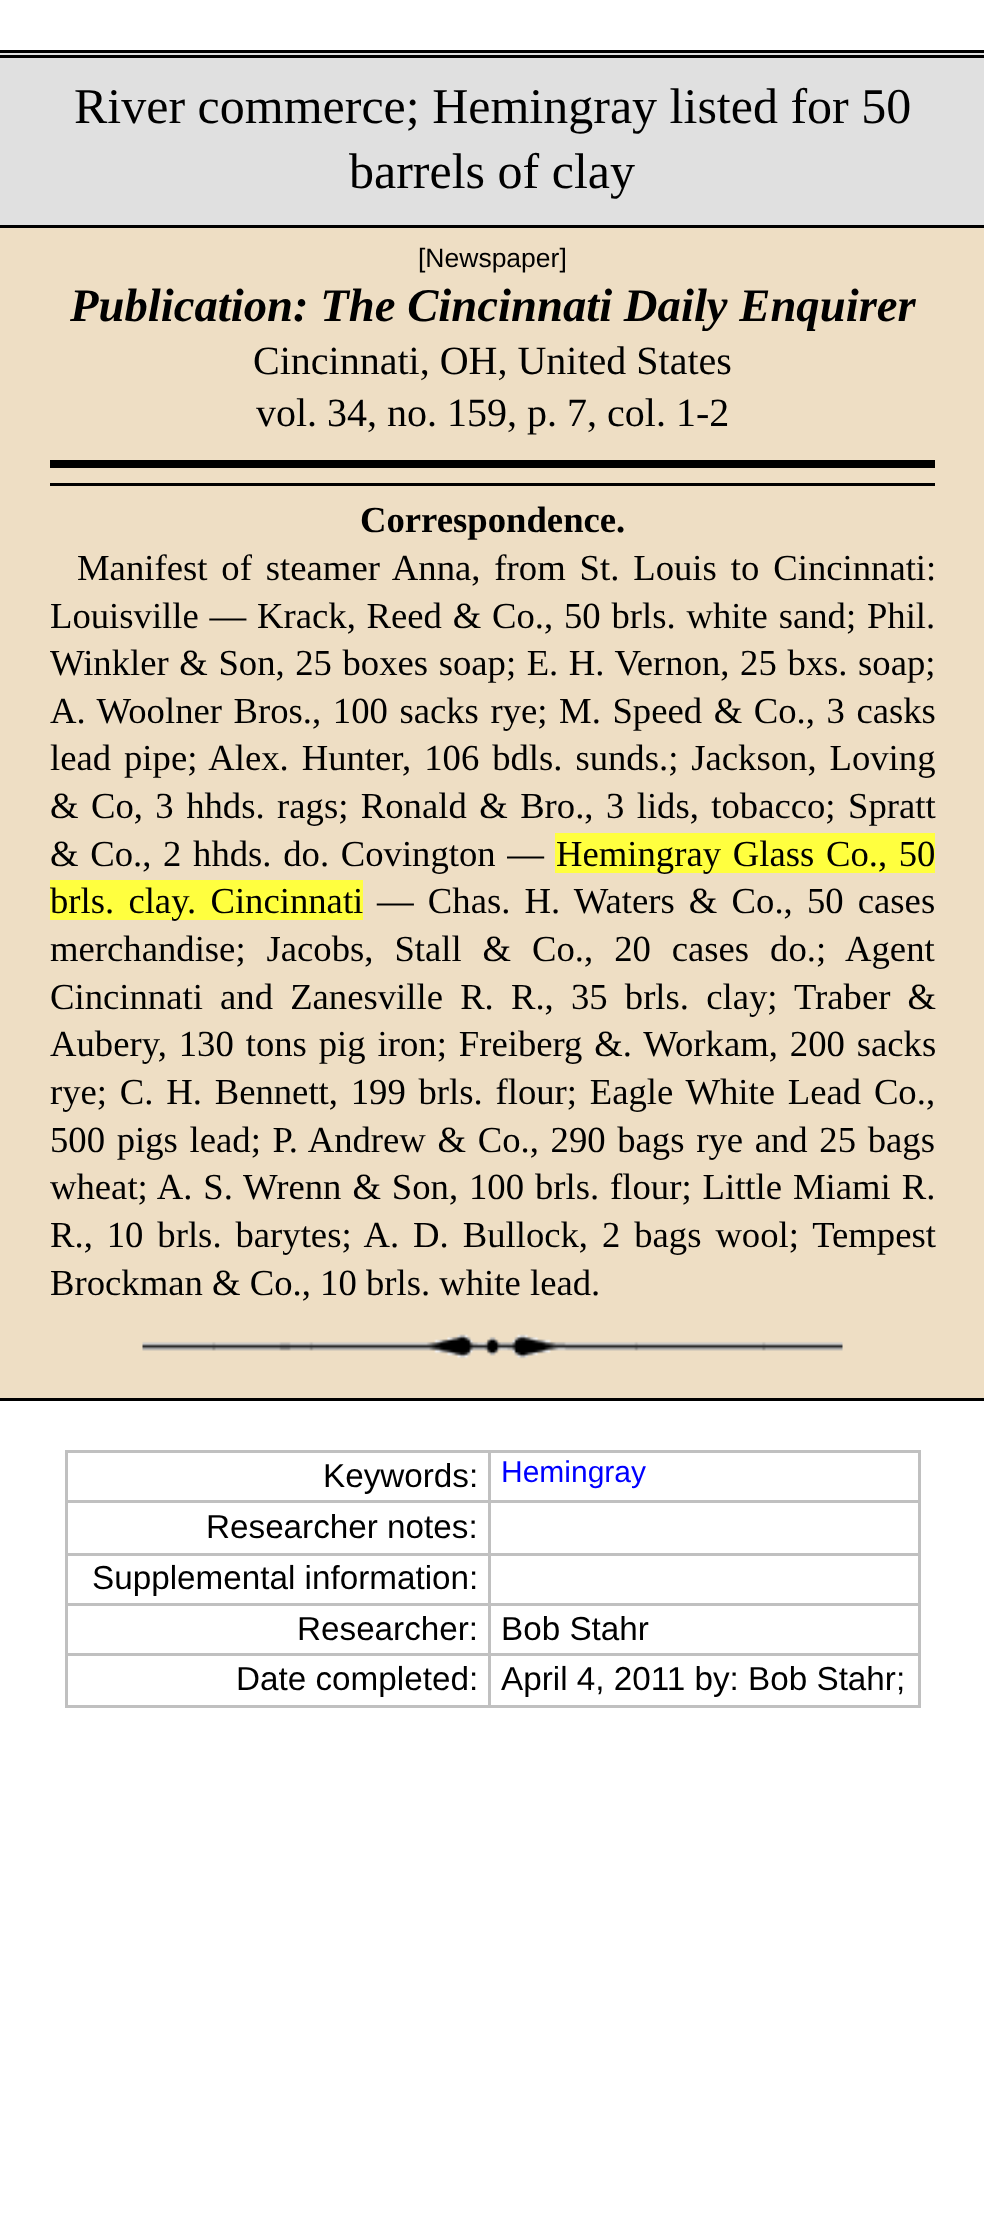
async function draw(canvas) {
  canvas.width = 984
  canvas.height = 2233
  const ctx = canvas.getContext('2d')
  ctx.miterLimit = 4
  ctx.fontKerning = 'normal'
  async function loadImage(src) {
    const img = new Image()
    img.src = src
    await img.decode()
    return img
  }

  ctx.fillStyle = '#fff'
  ctx.fillRect(0, 0, 984, 2233)
  ctx.fillStyle = '#e0e0e0'
  ctx.fillRect(0, 53, 984, 172)
  ctx.fillStyle = '#000'
  ctx.fillRect(0, 50, 984, 3)
  ctx.fillRect(0, 55, 984, 3)
  ctx.font = '50px Liberation Serif'
  ctx.fillText('River commerce; Hemingray listed for 50', 74, 123)
  ctx.fillText('barrels of clay', 349, 188)
  ctx.fillStyle = '#eedec4'
  ctx.fillRect(0, 228, 984, 1170)
  ctx.fillStyle = '#000'
  ctx.fillRect(0, 225, 984, 3)
  ctx.fillRect(0, 1398, 984, 3)
  ctx.font = '26.5px Liberation Sans'
  ctx.fillText('[Newspaper]', 418, 267)
  ctx.font = 'italic bold 46.7px Liberation Serif'
  ctx.fillText('Publication: The Cincinnati Daily Enquirer', 70, 321)
  ctx.font = '40px Liberation Serif'
  ctx.fillText('Cincinnati, OH, United States', 253, 374)
  ctx.fillText('vol. 34, no. 159, p. 7, col. 1-2', 256, 426)
  ctx.fillRect(50, 460, 885, 8)
  ctx.fillRect(50, 483, 885, 3)
  ctx.font = 'bold 36.7px Liberation Serif'
  ctx.fillText('Correspondence.', 360, 532)
  ctx.wordSpacing = '4.75px'
  ctx.font = '36.7px Liberation Serif'
  ctx.fillText('Manifest of steamer Anna, from St. Louis to Cincinnati:', 77, 580)
  ctx.wordSpacing = '1.6px'
  ctx.fillText('Louisville — Krack, Reed & Co., 50 brls. white sand; Phil.', 50, 628)
  ctx.wordSpacing = '1.4px'
  ctx.fillText('Winkler & Son, 25 boxes soap; E. H. Vernon, 25 bxs. soap;', 50, 675)
  ctx.wordSpacing = '2.4px'
  ctx.fillText('A. Woolner Bros., 100 sacks rye; M. Speed & Co., 3 casks', 50, 723)
  ctx.wordSpacing = '3.75px'
  ctx.fillText('lead pipe; Alex. Hunter, 106 bdls. sunds.; Jackson, Loving', 50, 770)
  ctx.wordSpacing = '3.25px'
  ctx.fillText('& Co, 3 hhds. rags; Ronald & Bro., 3 lids, tobacco; Spratt', 50, 818)
  ctx.wordSpacing = '2.5px'
  ctx.fillText('& Co., 2 hhds. do. Covington —', 50, 866)
  ctx.fillStyle = '#ffff3f'
  ctx.fillRect(555, 833, 380, 40)
  ctx.fillStyle = '#000'
  ctx.fillText('Hemingray Glass Co., 50', 556, 866)
  ctx.fillStyle = '#ffff3f'
  ctx.fillRect(50, 880, 313, 40)
  ctx.wordSpacing = '5px'
  ctx.fillStyle = '#000'
  ctx.fillText('brls. clay. Cincinnati', 50, 913)
  ctx.fillText('— Chas. H. Waters & Co., 50 cases', 377, 913)
  ctx.wordSpacing = '11.75px'
  ctx.fillText('merchandise; Jacobs, Stall & Co., 20 cases do.; Agent', 50, 961)
  ctx.wordSpacing = '8px'
  ctx.fillText('Cincinnati and Zanesville R. R., 35 brls. clay; Traber &', 50, 1009)
  ctx.wordSpacing = '2.75px'
  ctx.fillText('Aubery, 130 tons pig iron; Freiberg &. Workam, 200 sacks', 50, 1056)
  ctx.wordSpacing = '3.6px'
  ctx.fillText('rye; C. H. Bennett, 199 brls. flour; Eagle White Lead Co.,', 50, 1104)
  ctx.wordSpacing = '2.5px'
  ctx.fillText('500 pigs lead; P. Andrew & Co., 290 bags rye and 25 bags', 50, 1152)
  ctx.wordSpacing = '1.75px'
  ctx.fillText('wheat; A. S. Wrenn & Son, 100 brls. flour; Little Miami R.', 50, 1199)
  ctx.wordSpacing = '4.75px'
  ctx.fillText('R., 10 brls. barytes; A. D. Bullock, 2 bags wool; Tempest', 50, 1247)
  ctx.wordSpacing = '0px'
  ctx.fillText('Brockman & Co., 10 brls. white lead.', 50, 1295)
  ctx.drawImage(await loadImage('image0.png'), 142, 1334, 701, 25)
  ctx.fillStyle = '#c0c0c0'
  ctx.fillRect(488, 1450, 432, 3)
  ctx.fillRect(488, 1500, 432, 3)
  ctx.fillRect(488, 1553, 432, 3)
  ctx.fillRect(488, 1603, 432, 3)
  ctx.fillRect(488, 1653, 432, 3)
  ctx.fillRect(918, 1653, 3, 55)
  ctx.fillRect(488, 1705, 432, 3)
  ctx.fillRect(488, 1653, 3, 55)
  ctx.fillRect(65, 1653, 425, 3)
  ctx.fillRect(488, 1603, 3, 52)
  ctx.fillRect(65, 1603, 425, 3)
  ctx.fillRect(488, 1553, 3, 52)
  ctx.fillRect(65, 1553, 425, 3)
  ctx.fillRect(488, 1500, 3, 55)
  ctx.fillRect(65, 1500, 425, 3)
  ctx.fillRect(488, 1450, 3, 53)
  ctx.fillRect(65, 1450, 425, 3)
  ctx.fillRect(65, 1705, 425, 3)
  ctx.fillRect(65, 1653, 3, 55)
  ctx.fillRect(65, 1603, 3, 52)
  ctx.fillRect(65, 1553, 3, 52)
  ctx.fillRect(65, 1500, 3, 55)
  ctx.fillRect(65, 1450, 3, 53)
  ctx.font = '33.25px Liberation Sans'
  ctx.fillStyle = '#000'
  ctx.fillText('Keywords:', 323, 1487)
  ctx.fillStyle = '#c0c0c0'
  ctx.fillRect(918, 1603, 3, 52)
  ctx.fillRect(918, 1553, 3, 52)
  ctx.fillRect(918, 1500, 3, 55)
  ctx.fillRect(918, 1450, 3, 53)
  ctx.font = '30px Liberation Sans'
  ctx.fillStyle = '#00f'
  ctx.fillText('Hemingray', 501, 1482)
  ctx.font = '33.25px Liberation Sans'
  ctx.fillStyle = '#000'
  ctx.fillText('Researcher notes:', 206, 1538)
  ctx.fillText('Supplemental information:', 92, 1589)
  ctx.fillText('Researcher:', 297, 1640)
  ctx.fillText('Bob Stahr', 501, 1640)
  ctx.fillText('Date completed:', 236, 1690)
  ctx.fillText('April 4, 2011 by: Bob Stahr;', 501, 1690)
}

draw(document.querySelector('canvas'))
